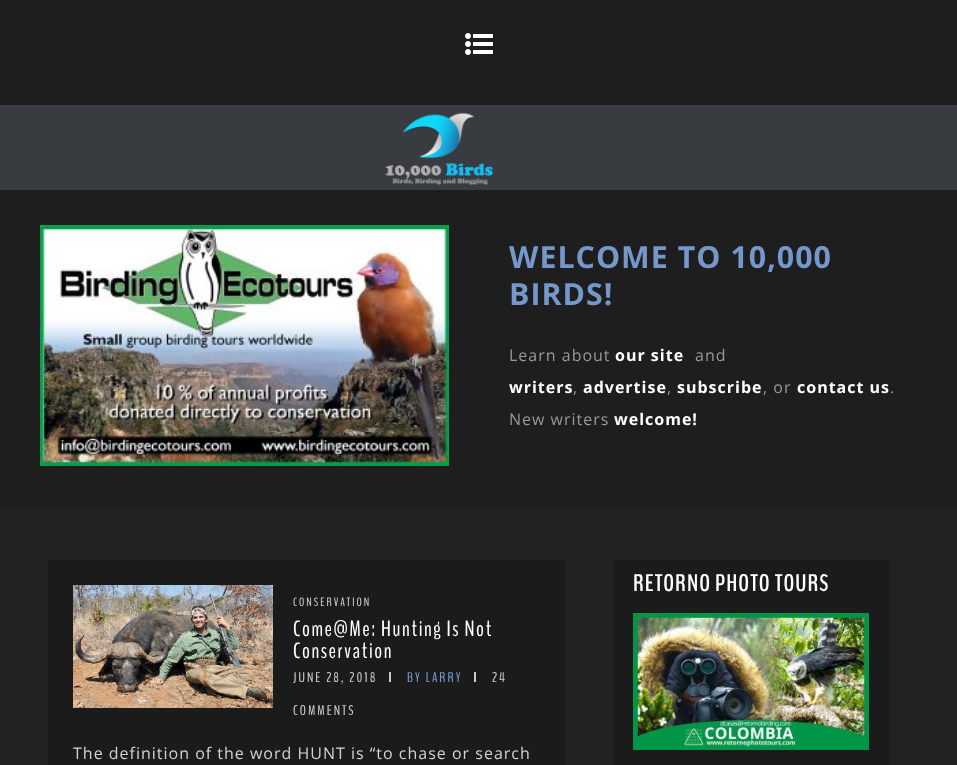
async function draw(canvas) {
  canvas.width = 957
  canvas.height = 765
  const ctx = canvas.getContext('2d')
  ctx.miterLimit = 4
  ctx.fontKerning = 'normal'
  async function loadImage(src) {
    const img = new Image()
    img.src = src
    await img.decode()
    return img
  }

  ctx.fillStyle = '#222'
  ctx.fillRect(0, 0, 957, 765)
  ctx.fillStyle = '#1e1e1e'
  ctx.fillRect(0, 0, 957, 510)
  ctx.drawImage(await loadImage('image0.png'), 465, 33, 28, 22)
  ctx.drawImage(await loadImage('image1.png'), 0, 105, 957, 85)
  ctx.drawImage(await loadImage('image2.png'), 40, 225, 409, 241)
  ctx.letterSpacing = '1px'
  ctx.font = 'bold 30.4px Open Sans'
  ctx.fillStyle = '#7497cc'
  ctx.fillText('WELCOME TO 10,000', 509, 268)
  ctx.fillText('BIRDS!', 509, 305)
  ctx.font = '16px Open Sans'
  ctx.fillStyle = '#999'
  ctx.fillText('Learn about', 509, 361)
  ctx.font = 'bold 16px Open Sans'
  ctx.fillStyle = '#fff'
  ctx.fillText('our site', 615, 361)
  ctx.font = '16px Open Sans'
  ctx.fillStyle = '#999'
  ctx.fillText('and', 695, 361)
  ctx.font = 'bold 16px Open Sans'
  ctx.fillStyle = '#fff'
  ctx.fillText('writers', 509, 393)
  ctx.font = '16px Open Sans'
  ctx.fillStyle = '#999'
  ctx.fillText(',', 573, 393)
  ctx.font = 'bold 16px Open Sans'
  ctx.fillStyle = '#fff'
  ctx.fillText('advertise', 583, 393)
  ctx.font = '16px Open Sans'
  ctx.fillStyle = '#999'
  ctx.fillText(',', 667, 393)
  ctx.font = 'bold 16px Open Sans'
  ctx.fillStyle = '#fff'
  ctx.fillText('subscribe', 677, 393)
  ctx.font = '16px Open Sans'
  ctx.fillStyle = '#999'
  ctx.fillText(', or', 763, 393)
  ctx.font = 'bold 16px Open Sans'
  ctx.fillStyle = '#fff'
  ctx.fillText('contact us', 797, 393)
  ctx.font = '16px Open Sans'
  ctx.fillStyle = '#999'
  ctx.fillText('.', 890, 393)
  ctx.fillText('New writers', 509, 425)
  ctx.font = 'bold 16px Open Sans'
  ctx.fillStyle = '#fff'
  ctx.fillText('welcome!', 614, 425)
  ctx.fillStyle = '#1b1b1b'
  ctx.fillRect(613, 560, 276, 205)
  ctx.font = 'bold 24px BenchNine'
  ctx.fillStyle = '#fff'
  ctx.fillText('RETORNO PHOTO TOURS', 633, 591)
  ctx.drawImage(await loadImage('image3.png'), 633, 613, 236, 137)
  ctx.fillStyle = '#1b1b1b'
  ctx.fillRect(48, 560, 517, 205)
  ctx.drawImage(await loadImage('image4.png'), 73, 585, 200, 123)
  ctx.letterSpacing = '2px'
  ctx.font = '12px BenchNine'
  ctx.fillStyle = '#ccc'
  ctx.fillText('CONSERVATION', 293, 606)
  ctx.letterSpacing = '1.5px'
  ctx.font = '22px BenchNine'
  ctx.fillStyle = '#fff'
  ctx.fillText('Come@Me: Hunting Is Not', 293, 636)
  ctx.fillText('Conservation', 293, 658)
  ctx.letterSpacing = '2px'
  ctx.font = '14px BenchNine'
  ctx.fillStyle = '#ccc'
  ctx.fillText('JUNE 28, 2018', 293, 682)
  ctx.fillRect(389, 672, 2, 10)
  ctx.fillStyle = '#7497cc'
  ctx.fillText('BY LARRY', 407, 682)
  ctx.fillStyle = '#ccc'
  ctx.fillRect(474, 672, 2, 10)
  ctx.fillText('24', 492, 682)
  ctx.fillText('COMMENTS', 293, 715)
  ctx.letterSpacing = '1px'
  ctx.font = '16px Open Sans'
  ctx.fillStyle = '#d3d3d3'
  ctx.fillText('The definition of the word HUNT is “to chase or search', 73, 759)
}

draw(document.querySelector('canvas'))
